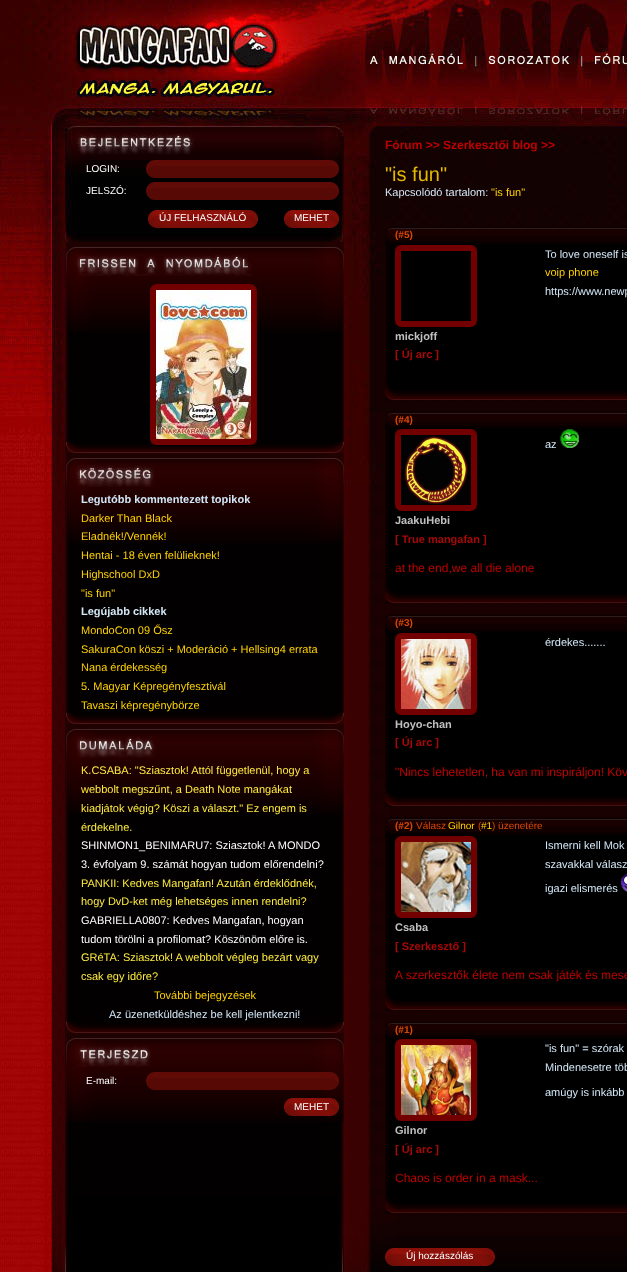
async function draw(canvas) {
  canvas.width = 627
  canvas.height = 1272
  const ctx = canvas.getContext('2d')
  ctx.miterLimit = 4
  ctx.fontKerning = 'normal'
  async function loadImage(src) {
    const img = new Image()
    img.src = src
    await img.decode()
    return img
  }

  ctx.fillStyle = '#fff'
  ctx.fillRect(0, 0, 627, 1272)
  ctx.drawImage(await loadImage('image0.png'), 0, 484, 627, 788)
  ctx.drawImage(await loadImage('image1.png'), 0, 0, 627, 484)
  ctx.drawImage(await loadImage('image2.png'), 50, 1196, 577, 76)
  ctx.drawImage(await loadImage('image3.png'), 76, 133, 119, 22)
  ctx.font = '10px Liberation Sans'
  ctx.fillText('LOGIN:', 86, 172)
  ctx.drawImage(await loadImage('image4.png'), 146, 160, 193, 18)
  ctx.fillText('JELSZÓ:', 86, 194)
  ctx.drawImage(await loadImage('image5.png'), 146, 182, 193, 18)
  ctx.drawImage(await loadImage('image6.png'), 148, 210, 110, 18)
  ctx.fillText('ÚJ FELHASZNÁLÓ', 159, 221)
  ctx.drawImage(await loadImage('image7.png'), 284, 210, 55, 18)
  ctx.fillText('MEHET', 294, 221)
  ctx.drawImage(await loadImage('image8.png'), 66, 332, 278, 110)
  ctx.drawImage(await loadImage('image9.png'), 66, 242, 278, 90)
  ctx.drawImage(await loadImage('image10.png'), 66, 442, 278, 11)
  ctx.drawImage(await loadImage('image11.png'), 76, 254, 177, 22)
  ctx.drawImage(await loadImage('image12.png'), 150, 284, 107, 155)
  ctx.drawImage(await loadImage('image13.png'), 150, 439, 107, 6)
  ctx.drawImage(await loadImage('image14.png'), 156, 290, 95, 149)
  ctx.drawImage(await loadImage('image15.png'), 66, 543, 278, 170)
  ctx.drawImage(await loadImage('image9.png'), 66, 453, 278, 90)
  ctx.drawImage(await loadImage('image10.png'), 66, 713, 278, 11)
  ctx.drawImage(await loadImage('image16.png'), 76, 465, 79, 22)
  ctx.font = 'bold 11px Liberation Sans'
  ctx.fillStyle = '#d3e7f7'
  ctx.fillText('Legutóbb kommentezett topikok', 81, 503)
  ctx.font = '11px Liberation Sans'
  ctx.fillStyle = '#ffd200'
  ctx.fillText('Darker Than Black', 81, 522)
  ctx.fillText('Eladnék!/Vennék!', 81, 540)
  ctx.fillText('Hentai - 18 éven felülieknek!', 81, 559)
  ctx.fillText('Highschool DxD', 81, 578)
  ctx.fillText('"is fun"', 81, 597)
  ctx.font = 'bold 11px Liberation Sans'
  ctx.fillStyle = '#d3e7f7'
  ctx.fillText('Legújabb cikkek', 81, 615)
  ctx.font = '11px Liberation Sans'
  ctx.fillStyle = '#ffd200'
  ctx.fillText('MondoCon 09 Ősz', 81, 634)
  ctx.fillText('SakuraCon köszi + Moderáció + Hellsing4 errata', 81, 653)
  ctx.fillText('Nana érdekesség', 81, 671)
  ctx.fillText('5. Magyar Képregényfesztivál', 81, 690)
  ctx.fillText('Tavaszi képregénybörze', 81, 709)
  ctx.drawImage(await loadImage('image17.png'), 66, 814, 278, 208)
  ctx.drawImage(await loadImage('image9.png'), 66, 724, 278, 90)
  ctx.drawImage(await loadImage('image10.png'), 66, 1022, 278, 11)
  ctx.drawImage(await loadImage('image18.png'), 76, 736, 80, 22)
  ctx.fillStyle = '#ffeb3e'
  ctx.fillText('K.CSABA: "Sziasztok! Attól függetlenül, hogy a', 81, 774)
  ctx.fillText('webbolt megszűnt, a Death Note mangákat', 81, 793)
  ctx.fillText('kiadjátok végig? Köszi a választ." Ez engem is', 81, 812)
  ctx.fillText('érdekelne.', 81, 831)
  ctx.fillStyle = '#fff'
  ctx.fillText('SHINMON1_BENIMARU7: Sziasztok! A MONDO', 81, 849)
  ctx.fillText('3. évfolyam 9. számát hogyan tudom előrendelni?', 81, 868)
  ctx.fillStyle = '#ffeb3e'
  ctx.fillText('PANKII: Kedves Mangafan! Azután érdeklődnék,', 81, 887)
  ctx.fillText('hogy DvD-ket még lehetséges innen rendelni?', 81, 905)
  ctx.fillStyle = '#fff'
  ctx.fillText('GABRIELLA0807: Kedves Mangafan, hogyan', 81, 924)
  ctx.fillText('tudom törölni a profilomat? Köszönöm előre is.', 81, 943)
  ctx.fillStyle = '#ffeb3e'
  ctx.fillText('GRéTA: Sziasztok! A webbolt végleg bezárt vagy', 81, 961)
  ctx.fillText('csak egy időre?', 81, 980)
  ctx.fillStyle = '#ffd200'
  ctx.fillText('További bejegyzések', 154, 999)
  ctx.fillStyle = '#d3e7f7'
  ctx.fillText('Az üzenetküldéshez be kell jelentkezni!', 109, 1018)
  ctx.drawImage(await loadImage('image19.png'), 66, 1033, 278, 89)
  ctx.drawImage(await loadImage('image20.png'), 76, 1045, 75, 22)
  ctx.font = '10px Liberation Sans'
  ctx.fillStyle = '#fff'
  ctx.fillText('E-mail:', 86, 1084)
  ctx.drawImage(await loadImage('image21.png'), 146, 1072, 193, 18)
  ctx.drawImage(await loadImage('image22.png'), 284, 1098, 55, 18)
  ctx.fillText('MEHET', 294, 1110)
  ctx.font = 'bold 12px Liberation Sans'
  ctx.fillStyle = '#bf0000'
  ctx.fillText('Fórum >> Szerkesztői blog >>', 385, 149)
  ctx.font = '20px Liberation Sans'
  ctx.fillStyle = '#e1b900'
  ctx.fillText('"is fun"', 385, 181)
  ctx.font = '11px Liberation Sans'
  ctx.fillStyle = '#d3e7f7'
  ctx.fillText('Kapcsolódó tartalom:', 385, 196)
  ctx.fillStyle = '#ffd200'
  ctx.fillText('"is fun"', 491, 196)
  ctx.drawImage(await loadImage('image23.png'), 385, 226, 242, 19)
  ctx.font = 'bold 10px Liberation Sans'
  ctx.fillStyle = '#da4800'
  ctx.fillText('(#5)', 395, 238)
  ctx.drawImage(await loadImage('image24.png'), 386, 245, 241, 130)
  ctx.font = '11px Liberation Sans'
  ctx.fillStyle = '#d3e7f7'
  ctx.fillText('To love oneself is', 545, 258)
  ctx.fillStyle = '#ffd200'
  ctx.fillText('voip phone', 545, 276)
  ctx.fillStyle = '#d3e7f7'
  ctx.fillText('https://www.newp', 545, 295)
  ctx.drawImage(await loadImage('image25.png'), 395, 245, 82, 82)
  ctx.font = 'bold 11px Liberation Sans'
  ctx.fillStyle = '#c0c0c0'
  ctx.fillText('mickjoff', 395, 340)
  ctx.fillStyle = '#a90808'
  ctx.fillText('[ Új arc ]', 395, 358)
  ctx.drawImage(await loadImage('image26.png'), 385, 375, 242, 26)
  ctx.drawImage(await loadImage('image27.png'), 385, 411, 242, 18)
  ctx.font = 'bold 10px Liberation Sans'
  ctx.fillStyle = '#da4800'
  ctx.fillText('(#4)', 395, 423)
  ctx.drawImage(await loadImage('image28.png'), 385, 429, 242, 149)
  ctx.font = '11px Liberation Sans'
  ctx.fillStyle = '#d3e7f7'
  ctx.fillText('az', 545, 448)
  ctx.drawImage(await loadImage('image29.png'), 560, 429, 19, 19)
  ctx.drawImage(await loadImage('image25.png'), 395, 429, 82, 82)
  ctx.drawImage(await loadImage('image30.png'), 404, 435, 65, 70)
  ctx.font = 'bold 11px Liberation Sans'
  ctx.fillStyle = '#c0c0c0'
  ctx.fillText('JaakuHebi', 395, 524)
  ctx.fillStyle = '#a90808'
  ctx.fillText('[ True mangafan ]', 395, 543)
  ctx.font = '12px Liberation Sans'
  ctx.fillStyle = '#bf0000'
  ctx.fillText('at the end,we all die alone', 395, 572)
  ctx.drawImage(await loadImage('image26.png'), 385, 578, 242, 26)
  ctx.drawImage(await loadImage('image23.png'), 385, 614, 242, 19)
  ctx.font = 'bold 10px Liberation Sans'
  ctx.fillStyle = '#da4800'
  ctx.fillText('(#3)', 395, 626)
  ctx.drawImage(await loadImage('image31.png'), 385, 633, 242, 148)
  ctx.font = '11px Liberation Sans'
  ctx.fillStyle = '#d3e7f7'
  ctx.fillText('érdekes.......', 545, 646)
  ctx.drawImage(await loadImage('image25.png'), 395, 633, 82, 82)
  ctx.drawImage(await loadImage('image32.png'), 401, 639, 70, 70)
  ctx.font = 'bold 11px Liberation Sans'
  ctx.fillStyle = '#c0c0c0'
  ctx.fillText('Hoyo-chan', 395, 728)
  ctx.fillStyle = '#a90808'
  ctx.fillText('[ Új arc ]', 395, 746)
  ctx.font = '12px Liberation Sans'
  ctx.fillStyle = '#bf0000'
  ctx.fillText('"Nincs lehetetlen, ha van mi inspiráljon! Köv', 395, 776)
  ctx.drawImage(await loadImage('image26.png'), 385, 781, 242, 26)
  ctx.drawImage(await loadImage('image23.png'), 385, 817, 242, 19)
  ctx.font = 'bold 10px Liberation Sans'
  ctx.fillStyle = '#da4800'
  ctx.fillText('(#2)', 395, 829)
  ctx.font = '10px Liberation Sans'
  ctx.fillText('Válasz', 416, 829)
  ctx.fillStyle = '#ffd200'
  ctx.fillText('Gilnor', 448, 829)
  ctx.fillStyle = '#da4800'
  ctx.fillText('(', 478, 829)
  ctx.fillStyle = '#ffd200'
  ctx.fillText('#1', 481, 829)
  ctx.fillStyle = '#da4800'
  ctx.fillText(') üzenetére', 492, 829)
  ctx.drawImage(await loadImage('image28.png'), 385, 836, 242, 149)
  ctx.font = '11px Liberation Sans'
  ctx.fillStyle = '#d3e7f7'
  ctx.fillText('Ismerni kell Mok', 545, 849)
  ctx.fillText('szavakkal válasz', 545, 868)
  ctx.fillText('igazi elismerés', 545, 892)
  ctx.drawImage(await loadImage('image33.png'), 621, 873, 6, 19)
  ctx.drawImage(await loadImage('image25.png'), 395, 836, 82, 82)
  ctx.drawImage(await loadImage('image34.png'), 401, 842, 70, 70)
  ctx.font = 'bold 11px Liberation Sans'
  ctx.fillStyle = '#c0c0c0'
  ctx.fillText('Csaba', 395, 931)
  ctx.fillStyle = '#a90808'
  ctx.fillText('[ Szerkesztő ]', 395, 950)
  ctx.font = '12px Liberation Sans'
  ctx.fillStyle = '#bf0000'
  ctx.fillText('A szerkesztők élete nem csak játék és mese', 395, 979)
  ctx.drawImage(await loadImage('image26.png'), 385, 985, 242, 26)
  ctx.drawImage(await loadImage('image27.png'), 385, 1021, 242, 18)
  ctx.font = 'bold 10px Liberation Sans'
  ctx.fillStyle = '#da4800'
  ctx.fillText('(#1)', 395, 1033)
  ctx.drawImage(await loadImage('image28.png'), 385, 1039, 242, 149)
  ctx.font = '11px Liberation Sans'
  ctx.fillStyle = '#d3e7f7'
  ctx.fillText('"is fun" = szórak', 545, 1052)
  ctx.fillText('Mindenesetre töb', 545, 1071)
  ctx.fillText('amúgy is inkább', 545, 1096)
  ctx.drawImage(await loadImage('image25.png'), 395, 1039, 82, 82)
  ctx.drawImage(await loadImage('image35.png'), 401, 1045, 70, 70)
  ctx.font = 'bold 11px Liberation Sans'
  ctx.fillStyle = '#c0c0c0'
  ctx.fillText('Gilnor', 395, 1134)
  ctx.fillStyle = '#a90808'
  ctx.fillText('[ Új arc ]', 395, 1153)
  ctx.font = '12px Liberation Sans'
  ctx.fillStyle = '#bf0000'
  ctx.fillText('Chaos is order in a mask...', 395, 1182)
  ctx.drawImage(await loadImage('image26.png'), 385, 1188, 242, 26)
  ctx.drawImage(await loadImage('image36.png'), 385, 1248, 110, 18)
  ctx.font = '10px Liberation Sans'
  ctx.fillStyle = '#fff'
  ctx.fillText('Új hozzászólás', 406, 1259)
}

draw(document.querySelector('canvas'))
